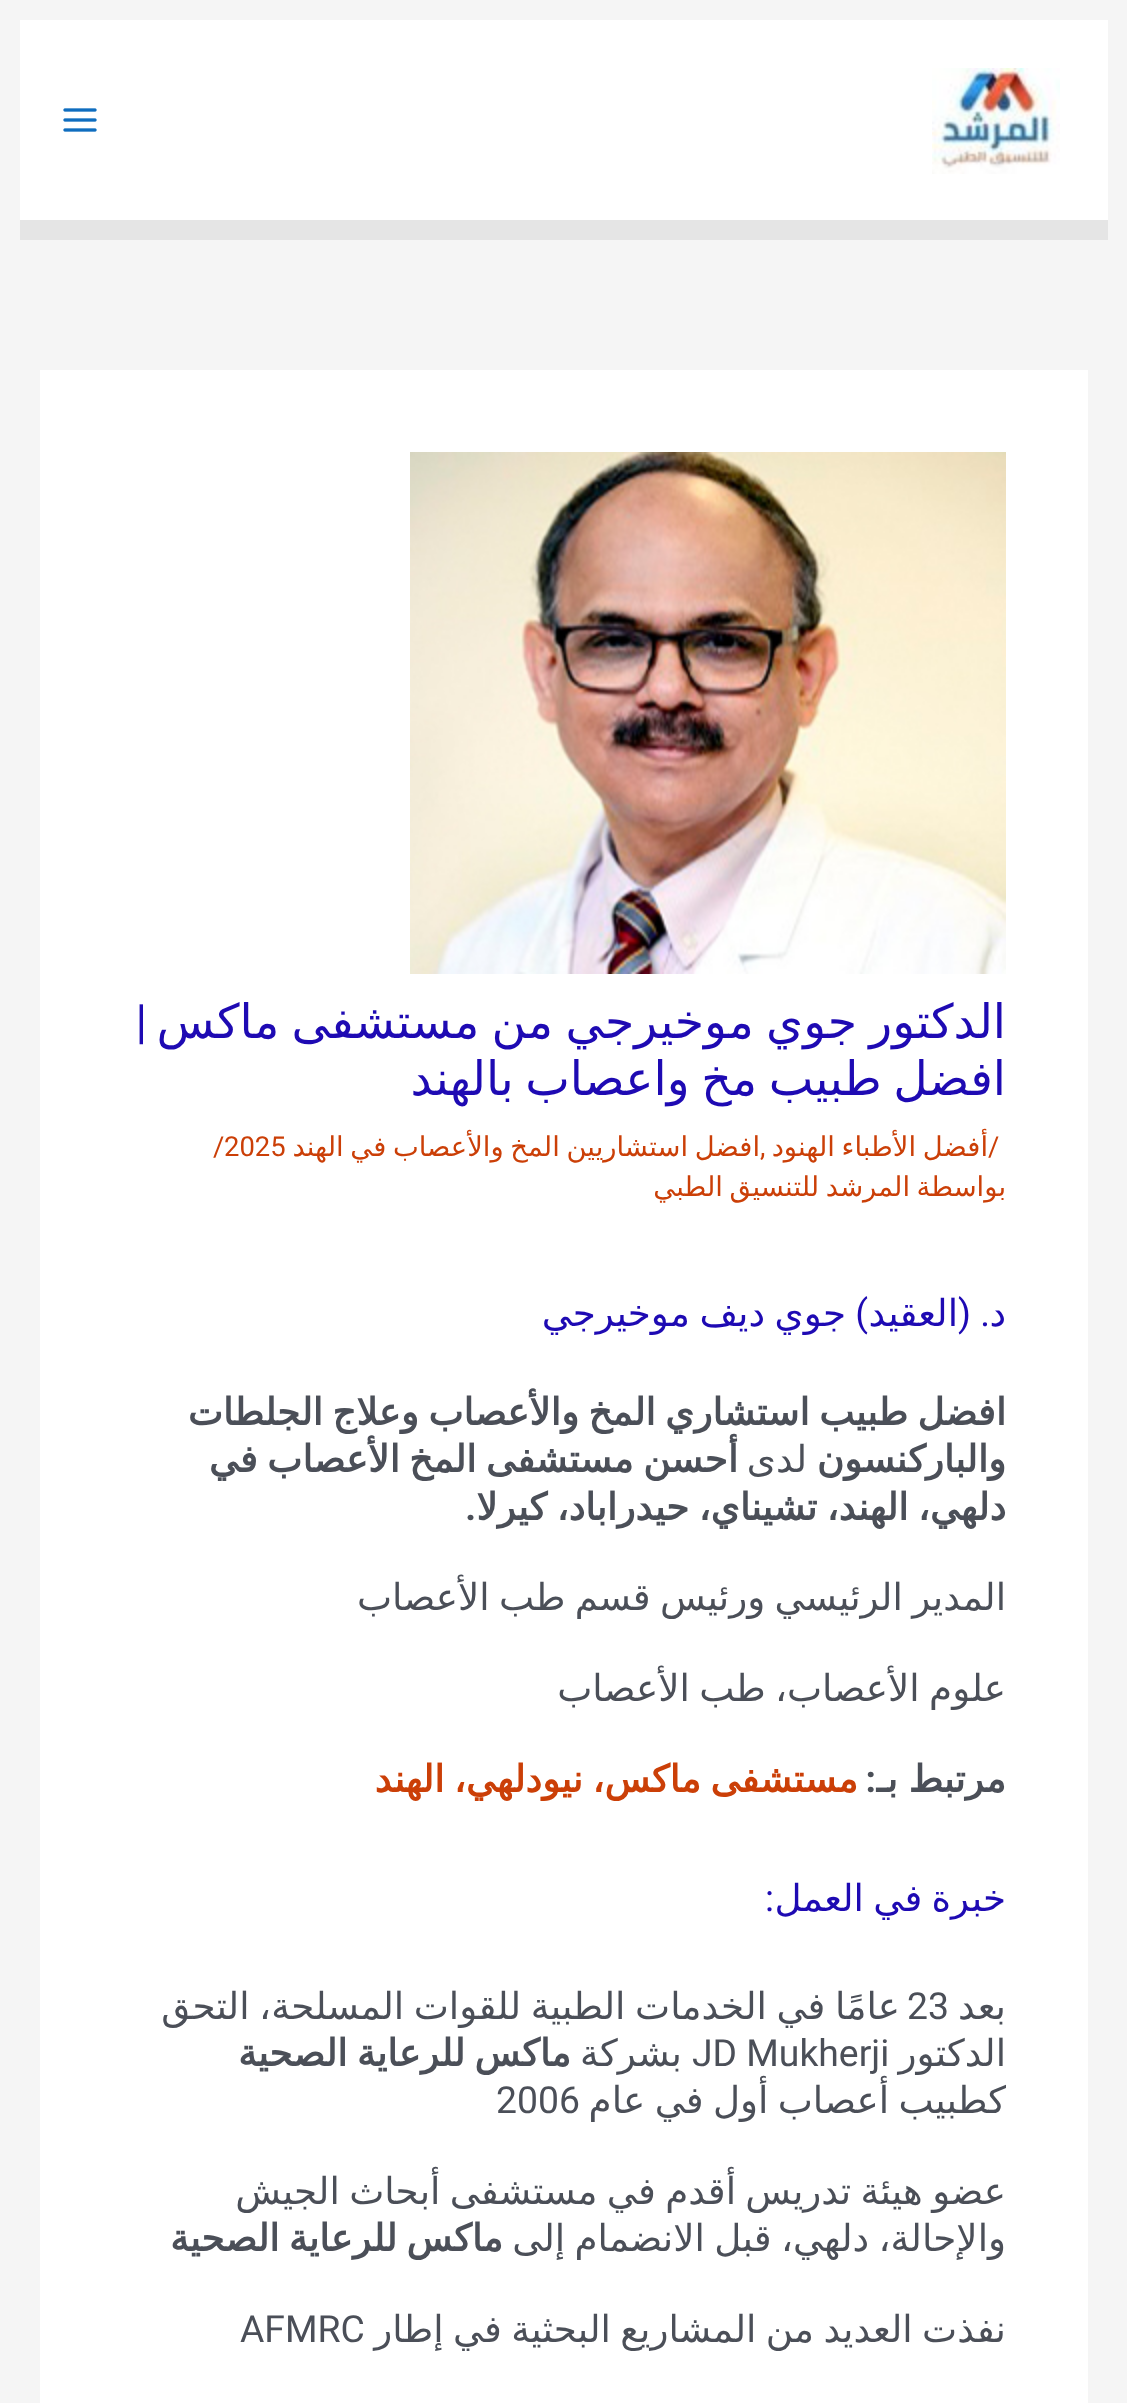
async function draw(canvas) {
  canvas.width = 1127
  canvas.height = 2403
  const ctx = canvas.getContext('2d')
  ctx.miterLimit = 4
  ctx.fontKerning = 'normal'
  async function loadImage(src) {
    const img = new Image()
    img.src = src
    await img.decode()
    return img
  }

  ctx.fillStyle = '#f5f5f5'
  ctx.fillRect(0, 0, 1127, 2403)
  ctx.fillStyle = '#fff'
  ctx.fillRect(20, 20, 1088, 200)
  ctx.fillStyle = '#e5e5e5'
  ctx.fillRect(20, 220, 1088, 20)
  ctx.drawImage(await loadImage('image0.png'), 932, 68, 128, 106)
  ctx.drawImage(await loadImage('image1.png'), 63, 108, 34, 24)
  ctx.fillStyle = '#fff'
  ctx.fillRect(40, 370, 1048, 2033)
  ctx.drawImage(await loadImage('image2.png'), 410, 452, 596, 522)
  ctx.wordSpacing = '-2.75px'
  ctx.direction = 'rtl'
  ctx.font = '47.4px DejaVu Sans'
  ctx.fillStyle = '#1e0ab3'
  ctx.fillText('الدكتور جوي موخيرجي من مستشفى ماكس', 1006, 1038)
  ctx.wordSpacing = '0px'
  ctx.font = '47.4px Roboto'
  ctx.fillText('|', 147, 1038)
  ctx.wordSpacing = '-3.5px'
  ctx.font = '47.4px DejaVu Sans'
  ctx.fillText('افضل طبيب مخ واعصاب بالهند', 1006, 1095)
  ctx.wordSpacing = '0px'
  ctx.direction = 'ltr'
  ctx.font = '27.4px Roboto'
  ctx.fillStyle = '#cb3f07'
  ctx.fillText('/', 988, 1156)
  ctx.wordSpacing = '-2px'
  ctx.direction = 'rtl'
  ctx.font = '27.4px DejaVu Sans'
  ctx.fillText('أفضل الأطباء الهنود', 988, 1156)
  ctx.wordSpacing = '0px'
  ctx.direction = 'ltr'
  ctx.font = '27.4px Roboto'
  ctx.fillText(',', 760, 1156)
  ctx.wordSpacing = '-2px'
  ctx.direction = 'rtl'
  ctx.font = '27.4px DejaVu Sans'
  ctx.fillText('افضل استشاريين المخ والأعصاب في الهند', 760, 1156)
  ctx.wordSpacing = '0px'
  ctx.direction = 'ltr'
  ctx.font = '27.4px Roboto'
  ctx.fillText('2025', 224, 1156)
  ctx.fillText('/', 213, 1156)
  ctx.direction = 'rtl'
  ctx.font = '27.4px DejaVu Sans'
  ctx.fillText('بواسطة', 1006, 1196)
  ctx.wordSpacing = '-2px'
  ctx.fillText('المرشد للتنسيق الطبي', 910, 1196)
  ctx.wordSpacing = '0px'
  ctx.font = '37.3px DejaVu Sans'
  ctx.fillStyle = '#1e0ab3'
  ctx.fillText('د', 1006, 1326)
  ctx.font = '37.3px Roboto'
  ctx.fillText('. (', 990, 1326)
  ctx.font = '37.3px DejaVu Sans'
  ctx.fillText('العقيد', 958, 1326)
  ctx.font = '37.3px Roboto'
  ctx.fillText(')', 868, 1326)
  ctx.font = '37.3px DejaVu Sans'
  ctx.fillText('جوي', 846, 1326)
  ctx.fillText('ديف', 765, 1326)
  ctx.fillText('موخيرجي', 690, 1326)
  ctx.wordSpacing = '-2.5px'
  ctx.font = 'bold 37.3px DejaVu Sans'
  ctx.fillStyle = '#4b4f58'
  ctx.fillText('افضل طبيب استشاري المخ والأعصاب وعلاج الجلطات', 1006, 1425)
  ctx.wordSpacing = '0px'
  ctx.fillText('والباركنسون', 1006, 1472)
  ctx.font = '37.3px DejaVu Sans'
  ctx.fillText('لدى', 807, 1472)
  ctx.wordSpacing = '-2.5px'
  ctx.font = 'bold 37.3px DejaVu Sans'
  ctx.fillText('أحسن مستشفى المخ الأعصاب في', 738, 1472)
  ctx.fillText('دلهي، الهند، تشيناي، حيدراباد، كيرلا', 1006, 1520)
  ctx.wordSpacing = '0px'
  ctx.font = 'bold 37.3px Roboto'
  ctx.fillText('.', 476, 1520)
  ctx.wordSpacing = '-2.5px'
  ctx.font = '37.3px DejaVu Sans'
  ctx.fillText('المدير الرئيسي ورئيس قسم طب الأعصاب', 1006, 1610)
  ctx.fillText('علوم الأعصاب، طب الأعصاب', 1006, 1701)
  ctx.wordSpacing = '-1px'
  ctx.font = 'bold 37.3px DejaVu Sans'
  ctx.fillText('مرتبط بـ', 1006, 1792)
  ctx.wordSpacing = '0px'
  ctx.font = 'bold 37.3px Roboto'
  ctx.fillText(':', 876, 1792)
  ctx.wordSpacing = '-2.5px'
  ctx.font = 'bold 37.3px DejaVu Sans'
  ctx.fillStyle = '#cb3f07'
  ctx.fillText('مستشفى ماكس، نيودلهي، الهند', 858, 1792)
  ctx.font = '37.3px DejaVu Sans'
  ctx.fillStyle = '#1e0ab3'
  ctx.fillText('خبرة في العمل', 1006, 1911)
  ctx.wordSpacing = '0px'
  ctx.font = '37.3px Roboto'
  ctx.fillText(':', 774, 1911)
  ctx.font = '37.3px DejaVu Sans'
  ctx.fillStyle = '#4b4f58'
  ctx.fillText('بعد', 1006, 2019)
  ctx.wordSpacing = '-2.25px'
  ctx.fillText('عامًا في الخدمات الطبية للقوات المسلحة، التحق', 900, 2019)
  ctx.wordSpacing = '0px'
  ctx.direction = 'ltr'
  ctx.font = '37.3px Roboto'
  ctx.fillText('23', 907, 2019)
  ctx.direction = 'rtl'
  ctx.font = '37.3px DejaVu Sans'
  ctx.fillText('الدكتور', 1006, 2066)
  ctx.direction = 'ltr'
  ctx.font = '37.3px Roboto'
  ctx.fillText('JD Mukherji', 692, 2066)
  ctx.direction = 'rtl'
  ctx.font = '37.3px DejaVu Sans'
  ctx.fillText('بشركة', 682, 2066)
  ctx.wordSpacing = '-2.5px'
  ctx.font = 'bold 37.3px DejaVu Sans'
  ctx.fillText('ماكس للرعاية الصحية', 571, 2066)
  ctx.font = '37.3px DejaVu Sans'
  ctx.fillText('كطبيب أعصاب أول في عام', 1006, 2113)
  ctx.wordSpacing = '0px'
  ctx.direction = 'ltr'
  ctx.font = '37.3px Roboto'
  ctx.fillText('2006', 496, 2113)
  ctx.wordSpacing = '-2.5px'
  ctx.direction = 'rtl'
  ctx.font = '37.3px DejaVu Sans'
  ctx.fillText('عضو هيئة تدريس أقدم في مستشفى أبحاث الجيش', 1006, 2204)
  ctx.fillText('والإحالة، دلهي، قبل الانضمام إلى', 1006, 2251)
  ctx.font = 'bold 37.3px DejaVu Sans'
  ctx.fillText('ماكس للرعاية الصحية', 503, 2251)
  ctx.font = '37.3px DejaVu Sans'
  ctx.fillText('نفذت العديد من المشاريع البحثية في إطار', 1006, 2342)
  ctx.wordSpacing = '0px'
  ctx.direction = 'ltr'
  ctx.font = '37.3px Roboto'
  ctx.fillText('AFMRC', 240, 2342)
}

draw(document.querySelector('canvas'))
